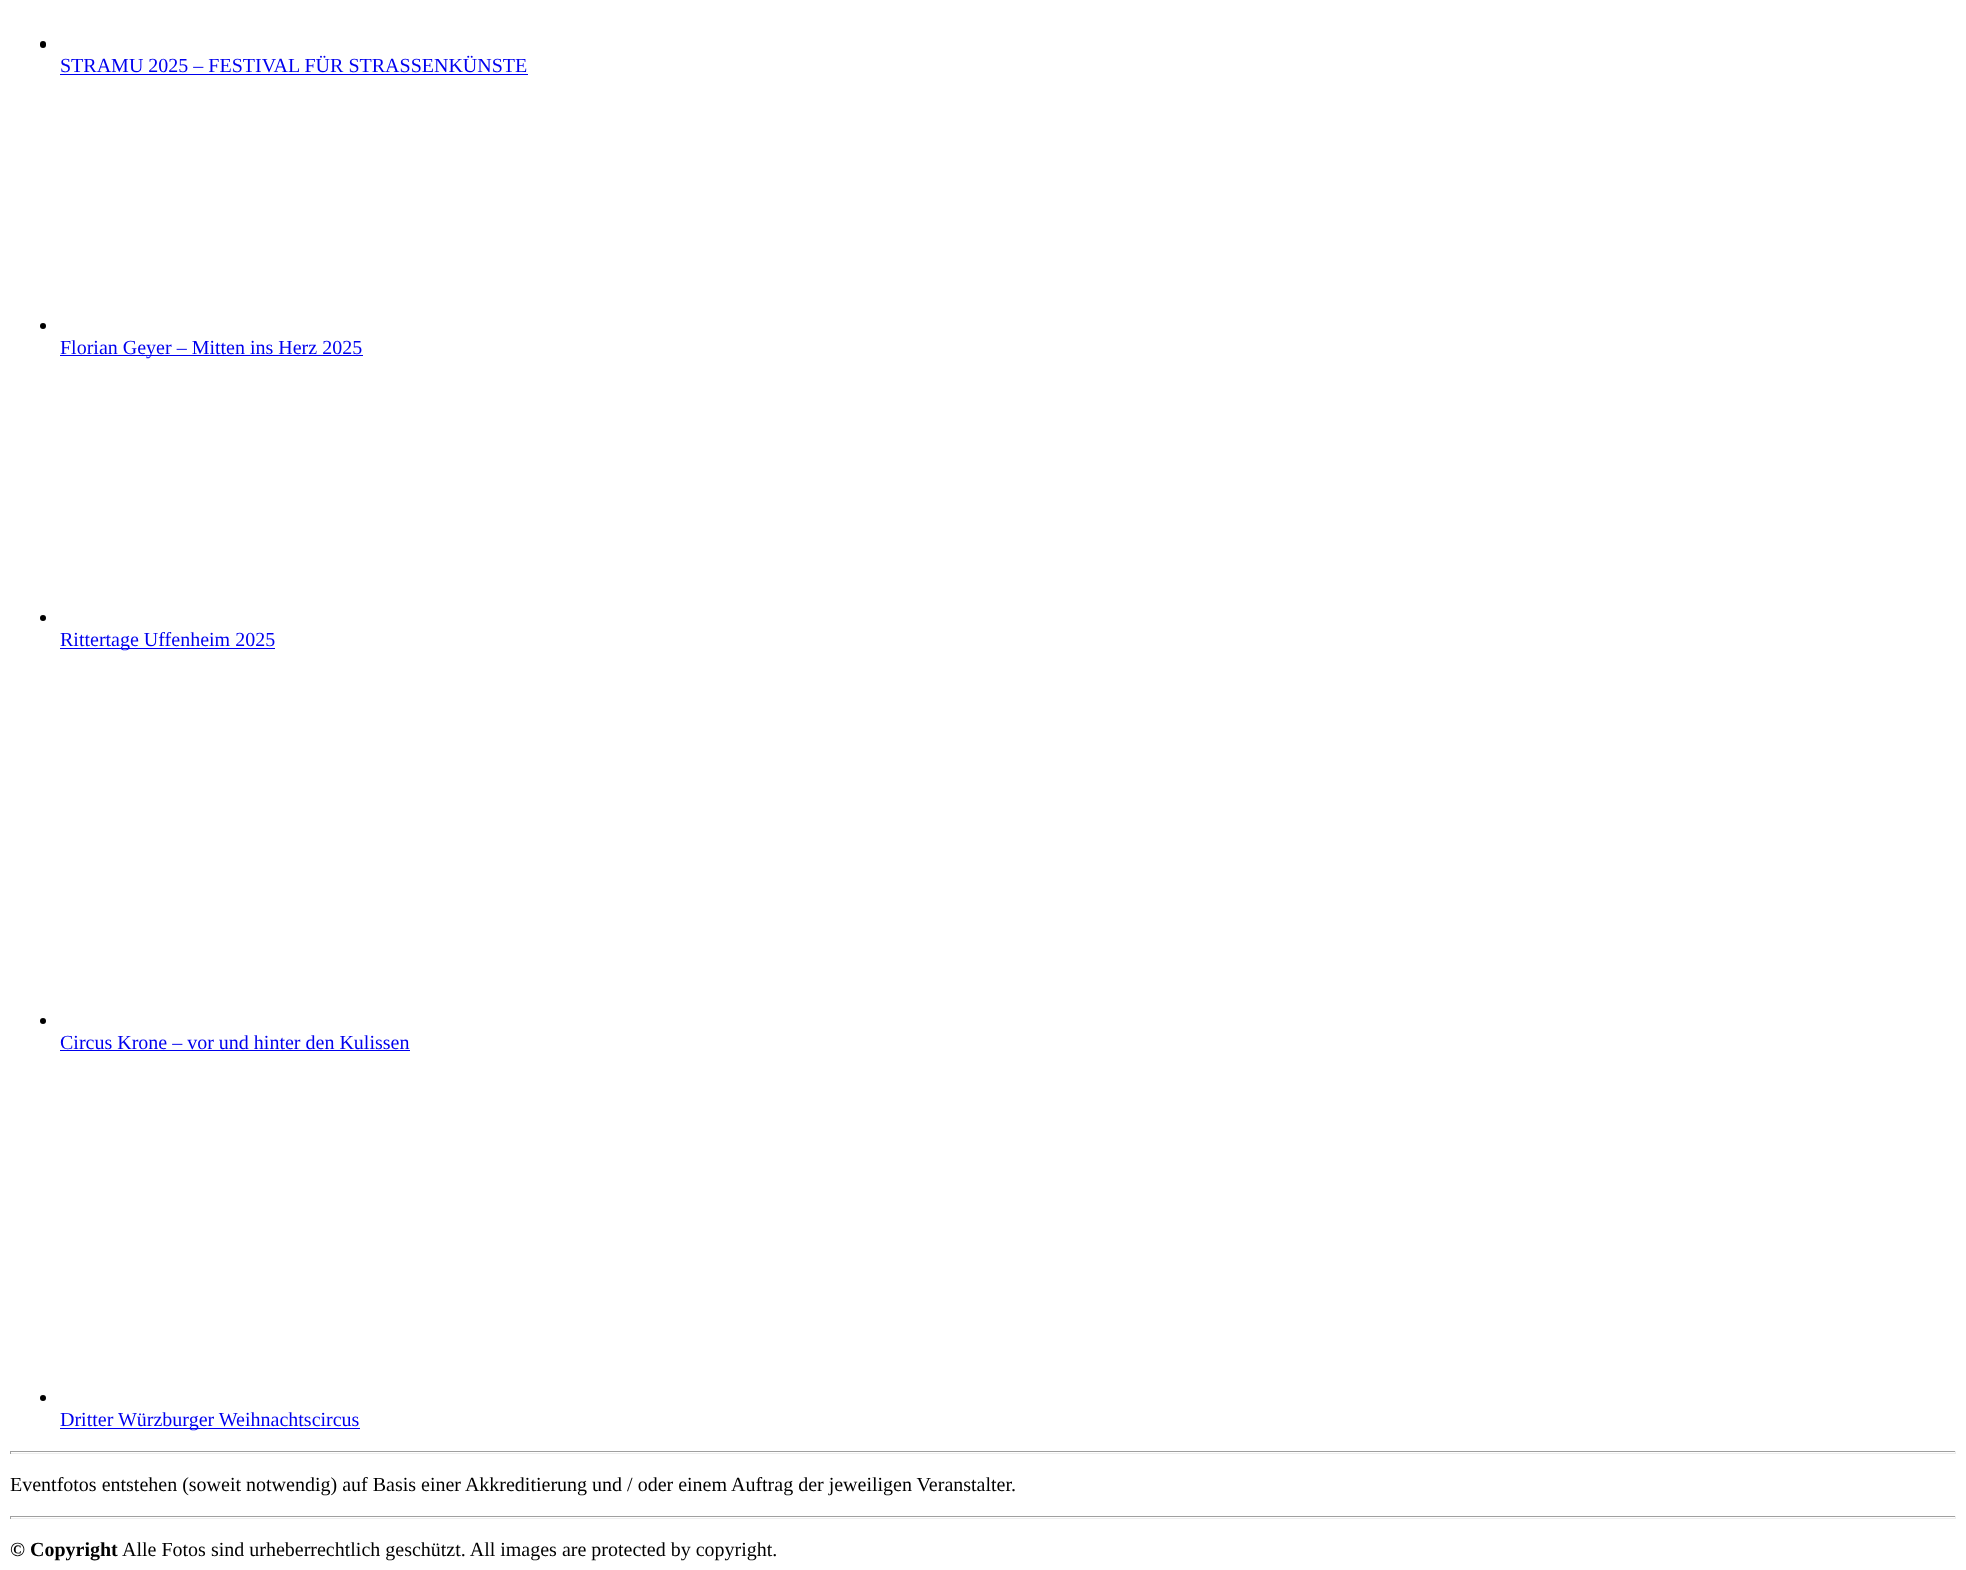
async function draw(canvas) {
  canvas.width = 1966
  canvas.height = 1570
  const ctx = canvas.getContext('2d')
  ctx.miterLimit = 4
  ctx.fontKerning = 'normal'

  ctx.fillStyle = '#fff'
  ctx.fillRect(0, 0, 1966, 1570)
  ctx.fillStyle = '#000'
  ctx.beginPath()
  ctx.roundRect(40, 41, 6, 7, 3)
  ctx.fill()
  ctx.font = '20px Liberation Serif'
  ctx.fillStyle = '#00e'
  ctx.fillText('STRAMU 2025 – FESTIVAL FÜR STRASSENKÜNSTE', 60, 72)
  ctx.fillRect(60, 74, 468, 1)
  ctx.fillStyle = '#000'
  ctx.beginPath()
  ctx.arc(43, 326, 3, 0, 2 * Math.PI)
  ctx.fill()
  ctx.fillStyle = '#00e'
  ctx.fillRect(60, 355, 303, 1)
  ctx.fillText('Florian Geyer – Mitten ins Herz 2025', 60, 354)
  ctx.fillStyle = '#000'
  ctx.beginPath()
  ctx.arc(43, 618, 3, 0, 2 * Math.PI)
  ctx.fill()
  ctx.fillStyle = '#00e'
  ctx.fillRect(60, 648, 215, 1)
  ctx.fillText('Rittertage Uffenheim 2025', 60, 646)
  ctx.fillStyle = '#000'
  ctx.beginPath()
  ctx.arc(43, 1021, 3, 0, 2 * Math.PI)
  ctx.fill()
  ctx.fillStyle = '#00e'
  ctx.fillText('Circus Krone – vor und hinter den Kulissen', 60, 1049)
  ctx.fillRect(60, 1050, 350, 1)
  ctx.fillStyle = '#000'
  ctx.beginPath()
  ctx.arc(43, 1398, 3, 0, 2 * Math.PI)
  ctx.fill()
  ctx.fillStyle = '#00e'
  ctx.fillRect(60, 1428, 300, 1)
  ctx.fillText('Dritter Würzburger Weihnachtscircus', 60, 1426)
  ctx.fillStyle = '#9f9f9f'
  ctx.fillRect(10, 1451, 1946, 1)
  ctx.fillStyle = '#eee'
  ctx.fillRect(1955, 1451, 1, 3)
  ctx.fillRect(10, 1453, 1946, 1)
  ctx.fillStyle = '#9f9f9f'
  ctx.fillRect(10, 1451, 1, 3)
  ctx.fillStyle = '#000'
  ctx.fillText('Eventfotos entstehen (soweit notwendig) auf Basis einer Akkreditierung und / oder einem Auftrag der jeweiligen Veranstalter.', 10, 1491)
  ctx.fillStyle = '#9f9f9f'
  ctx.fillRect(10, 1516, 1946, 1)
  ctx.fillStyle = '#eee'
  ctx.fillRect(1955, 1516, 1, 3)
  ctx.fillRect(10, 1518, 1946, 1)
  ctx.fillStyle = '#9f9f9f'
  ctx.fillRect(10, 1516, 1, 3)
  ctx.font = 'bold 20px Liberation Serif'
  ctx.fillStyle = '#000'
  ctx.fillText('© Copyright', 10, 1556)
  ctx.font = '20px Liberation Serif'
  ctx.fillText('Alle Fotos sind urheberrechtlich geschützt. All images are protected by copyright.', 122, 1556)
}

draw(document.querySelector('canvas'))
